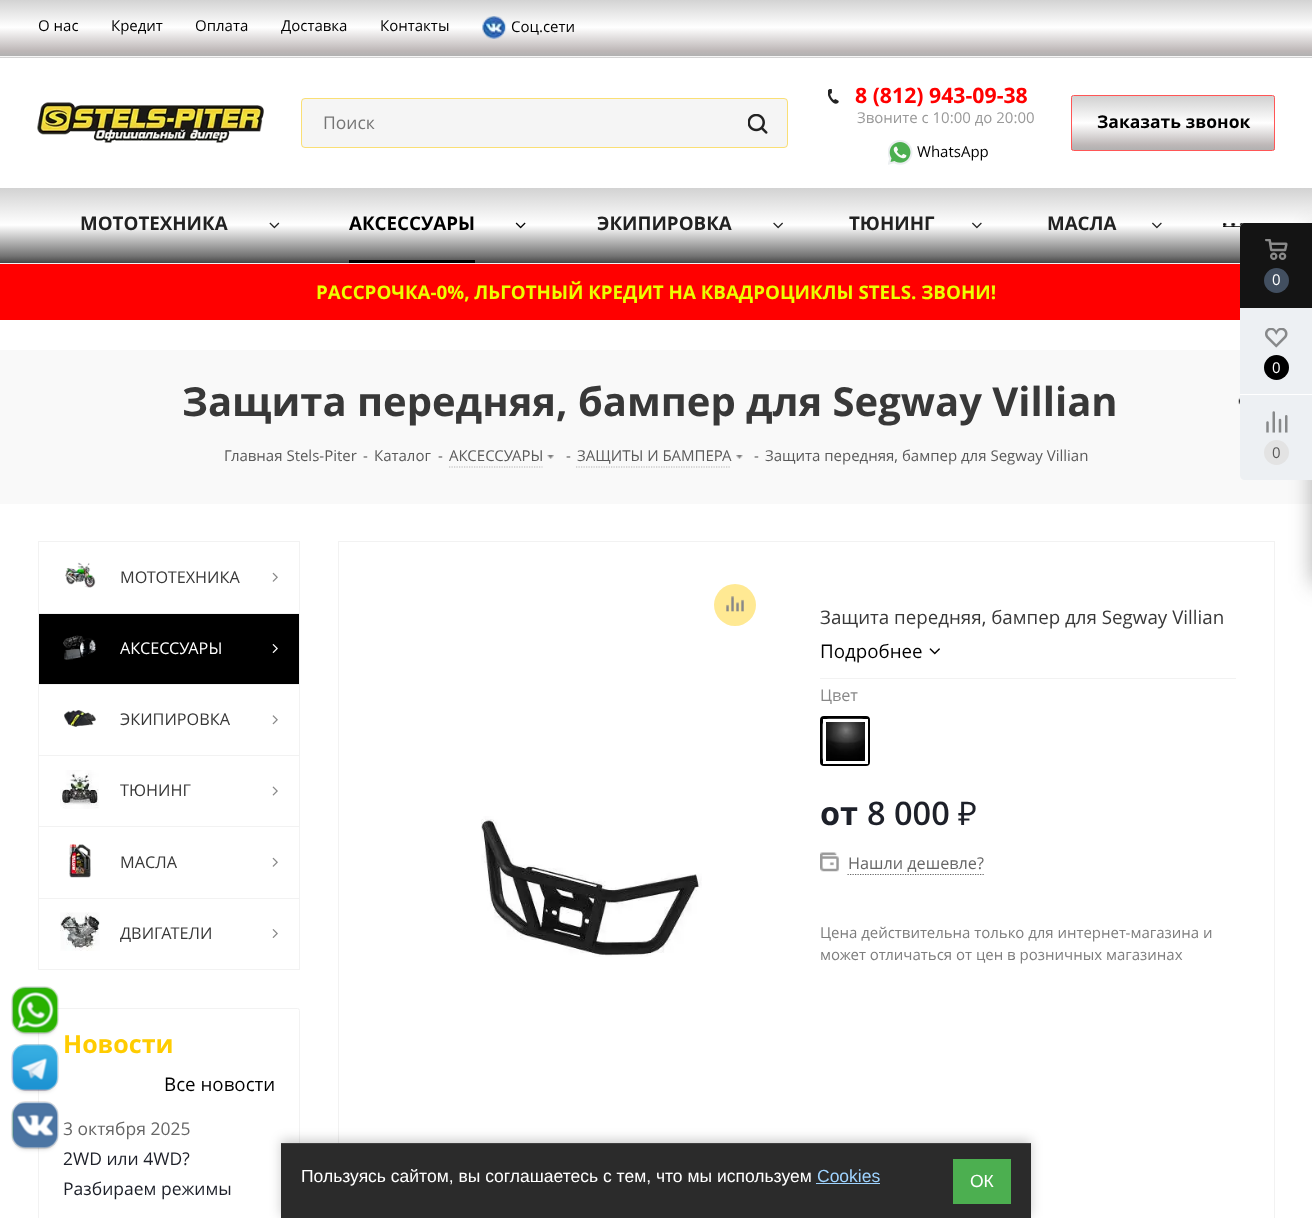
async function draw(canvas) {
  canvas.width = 1312
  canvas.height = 1218
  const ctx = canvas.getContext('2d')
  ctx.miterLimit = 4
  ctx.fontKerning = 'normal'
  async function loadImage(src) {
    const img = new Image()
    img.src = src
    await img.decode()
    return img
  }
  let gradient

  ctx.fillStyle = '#fff'
  ctx.fillRect(0, 0, 1312, 1218)
  gradient = ctx.createLinearGradient(656, -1.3, 656, 56)
  gradient.addColorStop(0, '#d1d1d1')
  gradient.addColorStop(0.5, '#fff')
  gradient.addColorStop(0.91, '#bdb7b7')
  gradient.addColorStop(1, '#b1b1b1')
  ctx.fillStyle = gradient
  ctx.fillRect(0, 0, 1312, 56)
  gradient = ctx.createLinearGradient(656, 56, 656, 114)
  gradient.addColorStop(0, '#d1d1d1')
  gradient.addColorStop(0.5, '#fff')
  gradient.addColorStop(0.91, '#bdb7b7')
  gradient.addColorStop(1, '#b1b1b1')
  ctx.fillStyle = gradient
  ctx.fillRect(0, 57, 1312, 1)
  ctx.fillStyle = '#f6f6f6'
  ctx.fillRect(0, 56, 1312, 1)
  ctx.font = '15px Open Sans'
  ctx.fillStyle = '#000'
  ctx.fillText('О нас', 38, 31)
  ctx.fillText('Кредит', 111, 31)
  ctx.fillText('Оплата', 195, 31)
  ctx.fillText('Доставка', 281, 31)
  ctx.fillText('Контакты', 380, 31)
  ctx.drawImage(await loadImage('image0.png'), 482, 16, 25, 23)
  ctx.fillText('Соц.сети', 511, 32)
  ctx.drawImage(await loadImage('image1.png'), 37, 102, 227, 41)
  ctx.fillStyle = '#f5f5f5'
  ctx.beginPath()
  ctx.roundRect(301, 98, 487, 50, 4)
  ctx.fill()
  ctx.beginPath()
  ctx.roundRect(301.5, 98.5, 486, 49, 3.5)
  ctx.strokeStyle = '#ffcc0085'
  ctx.stroke()
  ctx.font = '17.5px Open Sans'
  ctx.fillStyle = '#757575'
  ctx.fillText('Поиск', 323, 129)
  ctx.drawImage(await loadImage('image2.png'), 748, 114, 20, 20)
  ctx.drawImage(await loadImage('image3.png'), 828, 89, 11, 15)
  ctx.font = 'bold 21.25px Open Sans'
  ctx.fillStyle = '#f00'
  ctx.fillText('8 (812) 943-09-38', 855, 103)
  ctx.font = '15px Open Sans'
  ctx.fillStyle = '#999'
  ctx.fillText('Звоните с 10:00 до 20:00', 857, 123)
  ctx.drawImage(await loadImage('image4.png'), 888, 140, 25, 25)
  ctx.fillStyle = '#000'
  ctx.fillText('WhatsApp', 917, 157)
  ctx.save()
  ctx.beginPath()
  ctx.roundRect(1071, 95, 204, 56, 2.5)
  ctx.clip()
  gradient = ctx.createLinearGradient(1173, 96, 1173, 150)
  gradient.addColorStop(0, '#d1d1d1')
  gradient.addColorStop(0.5, '#fff')
  gradient.addColorStop(0.91, '#bdb7b7')
  gradient.addColorStop(1, '#b1b1b1')
  ctx.fillStyle = gradient
  ctx.fillRect(1071, 96, 204, 54)
  ctx.restore()
  ctx.beginPath()
  ctx.roundRect(1071.5, 95.5, 203, 55, 2)
  ctx.strokeStyle = '#ff5656'
  ctx.stroke()
  ctx.font = 'bold 17.5px Open Sans'
  ctx.fillText('Заказать звонок', 1097, 128)
  gradient = ctx.createLinearGradient(656, 187, 656, 263)
  gradient.addColorStop(0, '#d1d1d1')
  gradient.addColorStop(0.5, '#fff')
  gradient.addColorStop(0.91, '#737373')
  gradient.addColorStop(1, '#474747')
  ctx.fillStyle = gradient
  ctx.fillRect(0, 188, 1312, 75)
  ctx.fillStyle = '#f2f2f2'
  ctx.fillRect(0, 263, 1240, 1)
  ctx.font = 'bold 18.75px Open Sans'
  ctx.fillStyle = '#222'
  ctx.fillText('МОТОТЕХНИКА', 80, 230)
  ctx.drawImage(await loadImage('image5.png'), 269, 222, 11, 7)
  ctx.fillStyle = '#000'
  ctx.fillText('АКСЕССУАРЫ', 349, 230)
  ctx.fillRect(349, 260, 126, 3)
  ctx.drawImage(await loadImage('image6.png'), 515, 222, 11, 7)
  ctx.fillStyle = '#222'
  ctx.fillText('ЭКИПИРОВКА', 597, 230)
  ctx.drawImage(await loadImage('image7.png'), 773, 222, 10, 7)
  ctx.fillText('ТЮНИНГ', 849, 230)
  ctx.drawImage(await loadImage('image8.png'), 972, 222, 10, 7)
  ctx.fillText('МАСЛА', 1047, 230)
  ctx.drawImage(await loadImage('image8.png'), 1152, 222, 10, 7)
  ctx.fillStyle = '#000'
  ctx.fillRect(1223, 223, 21, 4)
  ctx.drawImage(await loadImage('image9.png'), 1223, 223, 21, 4)
  ctx.fillStyle = '#f00'
  ctx.fillRect(0, 264, 1240, 56)
  ctx.fillStyle = '#ecfe01'
  ctx.fillText('РАССРОЧКА-0%, ЛЬГОТНЫЙ КРЕДИТ НА КВАДРОЦИКЛЫ STELS. ЗВОНИ!', 316, 299)
  ctx.fillStyle = '#f9f9f9'
  ctx.fillRect(0, 350, 1312, 154)
  ctx.font = 'bold 40px Open Sans'
  ctx.fillStyle = '#383838'
  ctx.fillText('Защита передняя, бампер для Segway Villian', 182, 416)
  ctx.drawImage(await loadImage('image10.png'), 1238, 397, 2, 8)
  ctx.font = '15px Open Sans'
  ctx.fillStyle = '#5a5a5a'
  ctx.fillText('Главная Stels-Piter', 224, 461)
  ctx.fillText('-', 363, 461)
  ctx.fillText('Каталог', 374, 461)
  ctx.fillText('-', 438, 461)
  ctx.fillText('АКСЕССУАРЫ', 449, 461)
  ctx.beginPath()
  ctx.moveTo(449, 467)
  ctx.lineTo(542.5, 467)
  ctx.strokeStyle = '#b4b4b4'
  ctx.lineWidth = 1.2
  ctx.setLineDash([1.25, 1.25])
  ctx.stroke()
  ctx.drawImage(await loadImage('image11.png'), 547, 455, 7, 4)
  ctx.fillText('-', 566, 461)
  ctx.fillText('ЗАЩИТЫ И БАМПЕРА', 577, 461)
  ctx.beginPath()
  ctx.moveTo(576, 467)
  ctx.lineTo(731, 467)
  ctx.stroke()
  ctx.drawImage(await loadImage('image12.png'), 736, 455, 7, 4)
  ctx.fillText('-', 754, 461)
  ctx.fillText('Защита передняя, бампер для Segway Villian', 765, 461)
  ctx.fillStyle = '#f2f2f2'
  ctx.fillRect(38, 541, 262, 1)
  ctx.fillRect(299, 541, 1, 72)
  ctx.fillRect(38, 541, 1, 72)
  ctx.drawImage(await loadImage('image13.png'), 65, 562, 31, 26)
  ctx.font = '16.25px Open Sans'
  ctx.fillStyle = '#383838'
  ctx.fillText('МОТОТЕХНИКА', 120, 583)
  ctx.drawImage(await loadImage('image14.png'), 272, 572, 6, 10)
  ctx.fillStyle = '#000'
  ctx.fillRect(39, 614, 260, 70)
  ctx.fillStyle = '#f2f2f2'
  ctx.fillRect(38, 613, 262, 1)
  ctx.fillRect(299, 613, 1, 71)
  ctx.fillRect(38, 613, 1, 71)
  ctx.drawImage(await loadImage('image15.png'), 63, 635, 33, 25)
  ctx.fillStyle = '#fff'
  ctx.fillText('АКСЕССУАРЫ', 120, 654)
  ctx.drawImage(await loadImage('image16.png'), 272, 644, 6, 9)
  ctx.fillStyle = '#f2f2f2'
  ctx.fillRect(38, 684, 262, 1)
  ctx.fillRect(299, 684, 1, 71)
  ctx.fillRect(38, 684, 1, 71)
  ctx.drawImage(await loadImage('image17.png'), 64, 710, 32, 17)
  ctx.fillStyle = '#383838'
  ctx.fillText('ЭКИПИРОВКА', 120, 725)
  ctx.drawImage(await loadImage('image18.png'), 272, 715, 6, 10)
  ctx.fillStyle = '#f2f2f2'
  ctx.fillRect(38, 755, 262, 1)
  ctx.fillRect(299, 755, 1, 71)
  ctx.fillRect(38, 755, 1, 71)
  ctx.drawImage(await loadImage('image19.png'), 60, 770, 39, 39)
  ctx.fillStyle = '#383838'
  ctx.fillText('ТЮНИНГ', 120, 796)
  ctx.drawImage(await loadImage('image20.png'), 272, 786, 6, 10)
  ctx.fillStyle = '#f2f2f2'
  ctx.fillRect(38, 826, 262, 1)
  ctx.fillRect(299, 826, 1, 72)
  ctx.fillRect(38, 826, 1, 72)
  ctx.drawImage(await loadImage('image21.png'), 69, 844, 22, 34)
  ctx.fillStyle = '#383838'
  ctx.fillText('МАСЛА', 120, 868)
  ctx.drawImage(await loadImage('image14.png'), 272, 857, 6, 10)
  ctx.strokeStyle = '#f2f2f2'
  ctx.lineWidth = 1
  ctx.setLineDash([])
  ctx.strokeRect(38.5, 898.5, 261, 71)
  ctx.drawImage(await loadImage('image22.png'), 60, 912, 40, 39)
  ctx.fillText('ДВИГАТЕЛИ', 120, 939)
  ctx.drawImage(await loadImage('image23.png'), 272, 929, 6, 9)
  ctx.beginPath()
  ctx.roundRect(38.5, 1008.5, 261, 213, 2)
  ctx.stroke()
  ctx.font = 'bold 25px Open Sans'
  ctx.fillStyle = '#fc0'
  ctx.fillText('Новости', 63, 1053)
  ctx.font = '18.75px Open Sans'
  ctx.fillStyle = '#000'
  ctx.fillText('Все новости', 164, 1091)
  ctx.font = '17.5px Open Sans'
  ctx.fillStyle = '#666'
  ctx.fillText('3 октября 2025', 63, 1135)
  ctx.fillStyle = '#1d2029'
  ctx.fillText('2WD или 4WD?', 63, 1165)
  ctx.fillText('Разбираем режимы', 63, 1195)
  ctx.strokeRect(338.5, 541.5, 936, 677)
  ctx.fillStyle = '#ffe993'
  ctx.beginPath()
  ctx.arc(735, 605, 21, 0, 2 * Math.PI)
  ctx.fill()
  ctx.drawImage(await loadImage('image24.png'), 726, 596, 18, 16)
  ctx.drawImage(await loadImage('image25.png'), 481, 816, 221, 141)
  ctx.fillStyle = '#f2f2f2'
  ctx.fillRect(820, 678, 416, 1)
  ctx.font = '18.75px Open Sans'
  ctx.fillStyle = '#383838'
  ctx.fillText('Защита передняя, бампер для Segway Villian', 820, 624)
  ctx.fillStyle = '#000'
  ctx.fillText('Подробнее', 820, 658)
  ctx.drawImage(await loadImage('image26.png'), 929, 648, 11, 7)
  ctx.font = '16.25px Open Sans'
  ctx.fillStyle = '#888'
  ctx.fillText('Цвет', 820, 701)
  ctx.beginPath()
  ctx.roundRect(821.5, 717.5, 47, 47, 2.5)
  ctx.strokeStyle = '#000'
  ctx.lineWidth = 3
  ctx.stroke()
  ctx.drawImage(await loadImage('image27.png'), 822, 718, 43, 43)
  ctx.beginPath()
  ctx.rect(824.5, 720.5, 42, 42)
  ctx.strokeStyle = '#fff'
  ctx.stroke()
  ctx.font = 'bold 32.5px Open Sans'
  ctx.fillStyle = '#1d2029'
  ctx.fillText('от', 820, 825)
  ctx.font = '600 32.5px Open Sans'
  ctx.fillText('8 000', 867, 825)
  ctx.font = '32.5px Noto Sans'
  ctx.fillText('₽', 958, 825)
  ctx.drawImage(await loadImage('image28.png'), 820, 852, 19, 20)
  ctx.font = '16.25px Open Sans'
  ctx.fillStyle = '#666'
  ctx.fillText('Нашли дешевле?', 848, 869)
  ctx.beginPath()
  ctx.moveTo(847.5, 874.5)
  ctx.lineTo(984, 874.5)
  ctx.strokeStyle = '#666'
  ctx.lineWidth = 1.2
  ctx.setLineDash([1.25, 1.25])
  ctx.stroke()
  ctx.font = '15px Open Sans'
  ctx.fillStyle = '#7d7d7d'
  ctx.fillText('Цена действительна только для интернет-магазина и', 820, 938)
  ctx.fillText('может отличаться от цен в розничных магазинах', 820, 960)
  ctx.fillStyle = '#2c2c2c66'
  ctx.filter = 'blur(11px)'
  ctx.beginPath()
  ctx.roundRect(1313, 230, 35, 354, 2.5)
  ctx.fill()
  ctx.filter = 'none'
  ctx.fillStyle = '#edf0f3'
  ctx.beginPath()
  ctx.moveTo(1245, 223)
  ctx.lineTo(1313, 223)
  ctx.lineTo(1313, 480)
  ctx.lineTo(1245, 480)
  ctx.bezierCurveTo(1242, 480, 1240, 478, 1240, 475)
  ctx.lineTo(1240, 228)
  ctx.bezierCurveTo(1240, 225, 1242, 223, 1245, 223)
  ctx.closePath()
  ctx.fill()
  ctx.fillStyle = '#141414'
  ctx.beginPath()
  ctx.moveTo(1245, 223)
  ctx.lineTo(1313, 223)
  ctx.lineTo(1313, 308)
  ctx.lineTo(1240, 308)
  ctx.lineTo(1240, 228)
  ctx.bezierCurveTo(1240, 225, 1242, 223, 1245, 223)
  ctx.closePath()
  ctx.fill()
  ctx.drawImage(await loadImage('image29.png'), 1265, 239, 23, 21)
  ctx.fillStyle = '#424f60'
  ctx.beginPath()
  ctx.arc(1276.5, 280.5, 12.5, 0, 2 * Math.PI)
  ctx.fill()
  ctx.fillStyle = '#fff'
  ctx.fillText('0', 1272, 285)
  ctx.drawImage(await loadImage('image30.png'), 1265, 328, 23, 20)
  ctx.fillStyle = '#000'
  ctx.beginPath()
  ctx.arc(1276.5, 367.5, 12.5, 0, 2 * Math.PI)
  ctx.fill()
  ctx.fillStyle = '#fff'
  ctx.fillText('0', 1272, 373)
  ctx.fillRect(1240, 394, 72, 1)
  ctx.drawImage(await loadImage('image31.png'), 1266, 411, 22, 22)
  ctx.fillStyle = '#e3e3e3'
  ctx.beginPath()
  ctx.arc(1276.5, 452.5, 12.5, 0, 2 * Math.PI)
  ctx.fill()
  ctx.fillStyle = '#5a5a5a'
  ctx.fillText('0', 1272, 458)
  ctx.fillStyle = '#0000004d'
  ctx.filter = 'blur(2.5px)'
  ctx.beginPath()
  ctx.roundRect(16, 995, 38, 38, 9)
  ctx.fill()
  ctx.filter = 'none'
  ctx.beginPath()
  ctx.roundRect(11.5, 986.5, 47, 47, 13.5)
  ctx.strokeStyle = '#0000001a'
  ctx.lineWidth = 1
  ctx.setLineDash([])
  ctx.stroke()
  ctx.drawImage(await loadImage('image32.png'), 12, 987, 46, 46)
  ctx.filter = 'blur(2.5px)'
  ctx.beginPath()
  ctx.roundRect(16, 1053, 38, 37, 9)
  ctx.fill()
  ctx.filter = 'none'
  ctx.beginPath()
  ctx.roundRect(11.5, 1044.5, 47, 46, 13.5)
  ctx.stroke()
  ctx.drawImage(await loadImage('image33.png'), 12, 1044, 46, 47)
  ctx.filter = 'blur(2.5px)'
  ctx.beginPath()
  ctx.roundRect(16, 1110, 38, 38, 9)
  ctx.fill()
  ctx.filter = 'none'
  ctx.beginPath()
  ctx.roundRect(11.5, 1101.5, 47, 47, 13.5)
  ctx.stroke()
  ctx.drawImage(await loadImage('image34.png'), 12, 1102, 46, 46)
  ctx.fillStyle = '#00000033'
  ctx.filter = 'blur(6px)'
  ctx.beginPath()
  ctx.rect(281, 1140, 750, 76)
  ctx.fill()
  ctx.filter = 'none'
  ctx.fillStyle = '#2b2b2b'
  ctx.fillRect(281, 1144, 750, 74)
  ctx.fillStyle = '#404040'
  ctx.fillRect(281, 1143, 750, 1)
  ctx.font = '17.5px Liberation Sans'
  ctx.fillStyle = '#fff'
  ctx.fillText('Пользуясь сайтом, вы соглашаетесь с тем, что мы используем', 301, 1182)
  ctx.fillStyle = '#9fd3ff'
  ctx.fillText('Cookies', 817, 1182)
  ctx.fillRect(816, 1183, 64, 1)
  ctx.fillStyle = '#4caf50'
  ctx.fillRect(953, 1159, 58, 45)
  ctx.fillStyle = '#fff'
  ctx.fillText('ОК', 970, 1187)
}

draw(document.querySelector('canvas'))
